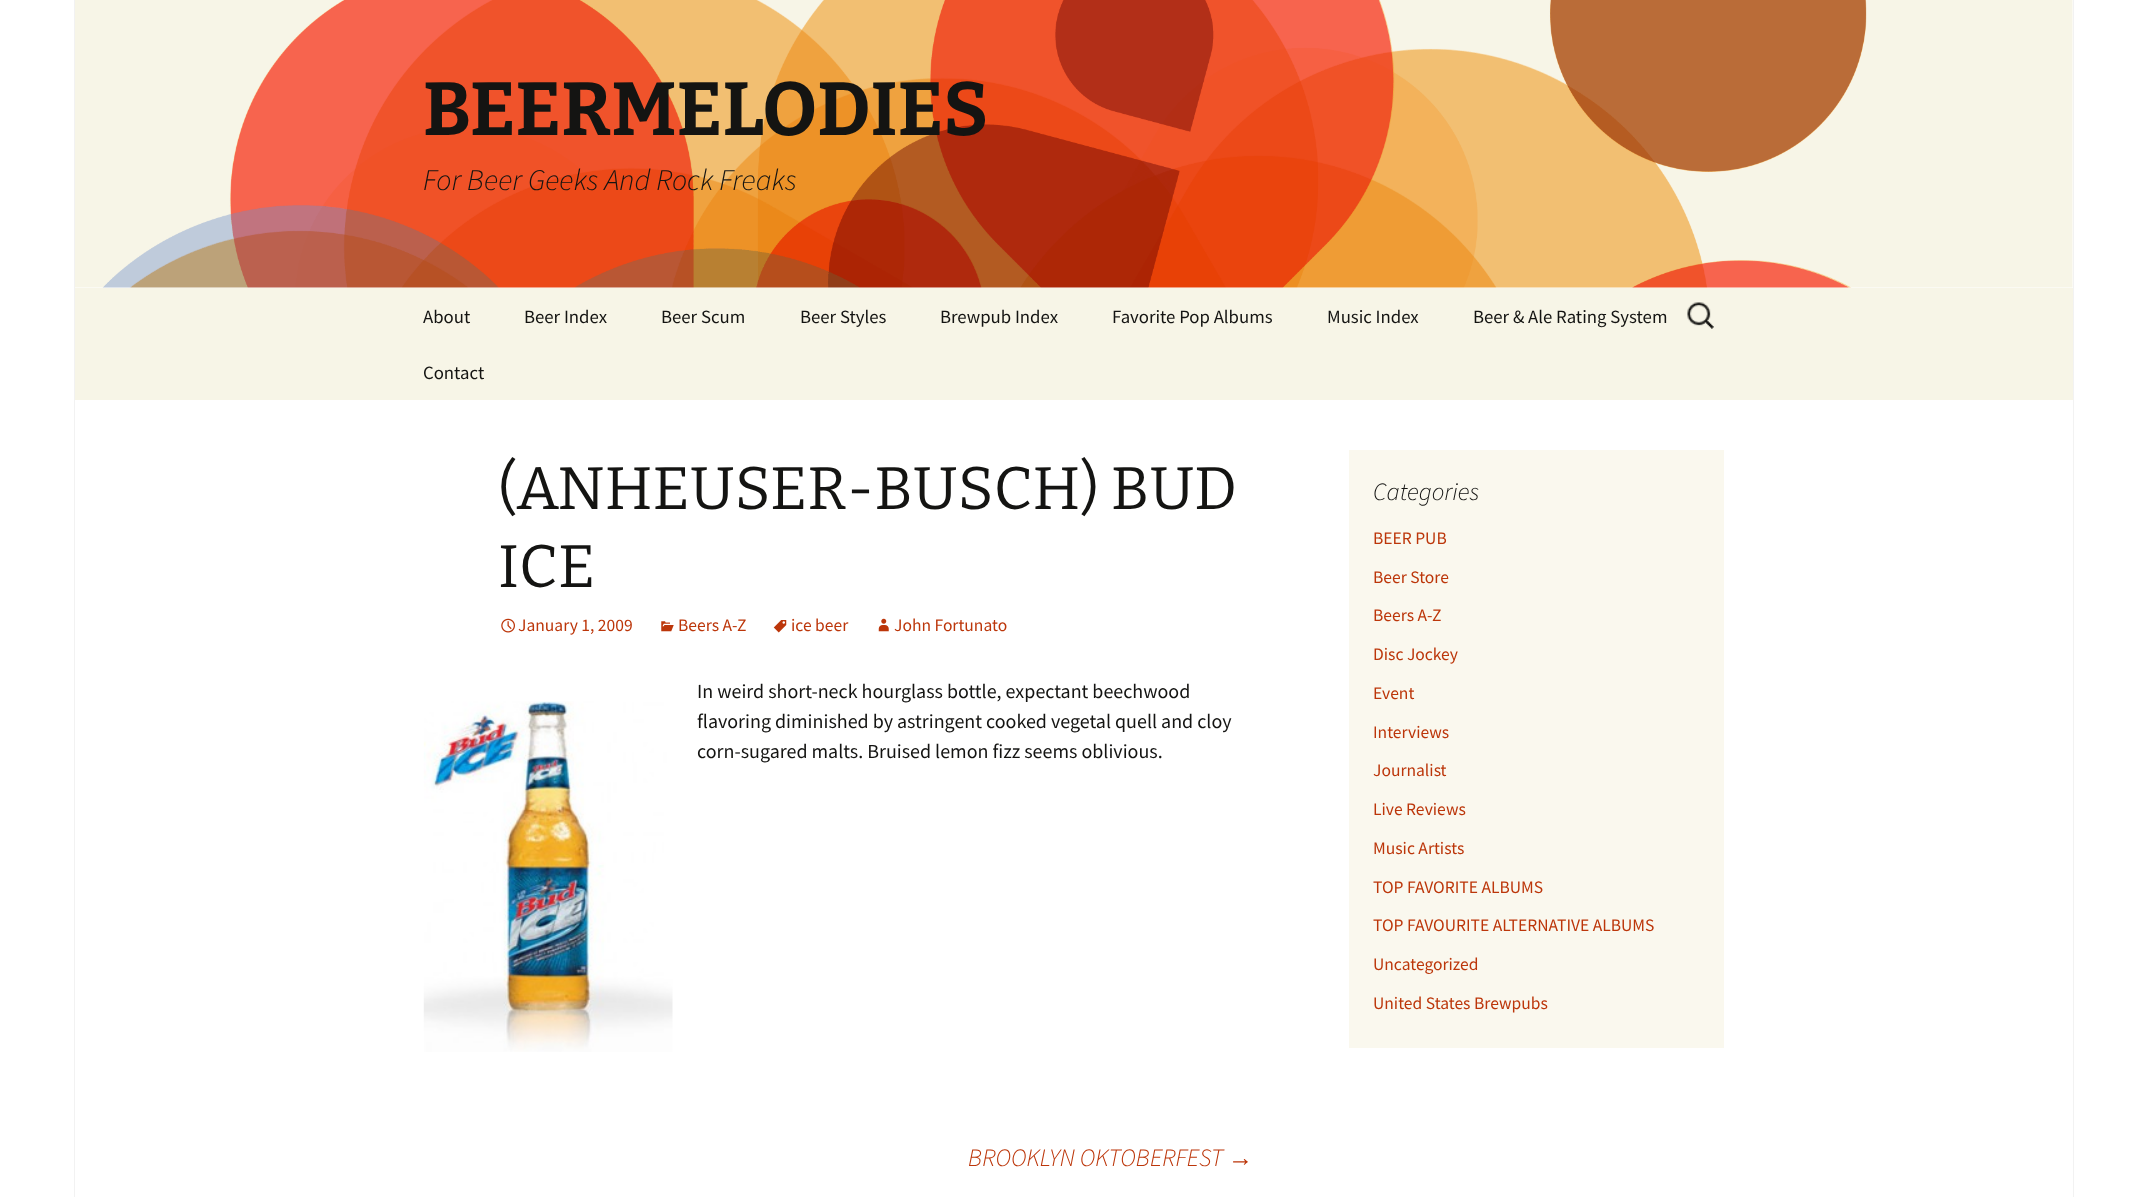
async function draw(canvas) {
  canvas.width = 2146
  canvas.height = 1197
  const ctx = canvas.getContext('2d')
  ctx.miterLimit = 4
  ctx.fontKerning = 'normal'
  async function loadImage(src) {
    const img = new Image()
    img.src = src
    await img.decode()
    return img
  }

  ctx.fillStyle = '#fff'
  ctx.fillRect(0, 0, 2146, 1197)
  ctx.fillStyle = '#f2f2f2'
  ctx.fillRect(2073, 0, 1, 1197)
  ctx.fillRect(74, 0, 1, 1197)
  ctx.drawImage(await loadImage('image0.png'), 75, 0, 1998, 288)
  ctx.font = 'bold 75px Bitter'
  ctx.fillStyle = '#141412'
  ctx.fillText('BEERMELODIES', 423, 135)
  ctx.font = 'italic 300 30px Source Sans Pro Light'
  ctx.fillText('For Beer Geeks And Rock Freaks', 423, 190)
  ctx.fillStyle = '#f7f5e7'
  ctx.fillRect(75, 288, 1998, 112)
  ctx.font = '18.75px Source Sans Pro'
  ctx.fillStyle = '#141412'
  ctx.fillText('About', 423, 323)
  ctx.fillText('Beer Index', 524, 323)
  ctx.fillText('Beer Scum', 661, 323)
  ctx.fillText('Beer Styles', 800, 323)
  ctx.fillText('Brewpub Index', 940, 323)
  ctx.fillText('Favorite Pop Albums', 1112, 323)
  ctx.fillText('Music Index', 1327, 323)
  ctx.fillText('Beer & Ale Rating System', 1473, 323)
  ctx.fillText('Contact', 423, 379)
  ctx.drawImage(await loadImage('image1.png'), 1687, 302, 27, 27)
  ctx.font = '60px Bitter'
  ctx.fillText('(ANHEUSER-BUSCH) BUD', 498, 509)
  ctx.fillText('ICE', 498, 587)
  ctx.drawImage(await loadImage('image2.png'), 501, 618, 14, 15)
  ctx.font = '17.5px Source Sans Pro'
  ctx.fillStyle = '#bc360a'
  ctx.fillText('January 1, 2009', 518, 631)
  ctx.drawImage(await loadImage('image3.png'), 661, 621, 13, 11)
  ctx.fillText('Beers A-Z', 678, 631)
  ctx.drawImage(await loadImage('image4.png'), 773, 620, 14, 13)
  ctx.fillText('ice beer', 791, 631)
  ctx.drawImage(await loadImage('image5.png'), 878, 618, 11, 14)
  ctx.fillText('John Fortunato', 894, 631)
  ctx.font = '20px Source Sans Pro'
  ctx.fillStyle = '#141412'
  ctx.fillText('In weird short-neck hourglass bottle, expectant beechwood', 697, 698)
  ctx.drawImage(await loadImage('image6.png'), 423, 701, 250, 351)
  ctx.fillText('flavoring diminished by astringent cooked vegetal quell and cloy', 697, 728)
  ctx.fillText('corn-sugared malts. Bruised lemon fizz seems oblivious.', 697, 758)
  ctx.font = 'italic 300 25px Source Sans Pro Light'
  ctx.fillStyle = '#bc360a'
  ctx.fillText('BROOKLYN OKTOBERFEST', 968, 1166)
  ctx.font = 'italic 25px Liberation Sans'
  ctx.fillText('→', 1228, 1166)
  ctx.fillStyle = '#faf8ee'
  ctx.fillRect(1349, 450, 375, 598)
  ctx.font = 'italic 300 25px Source Sans Pro Light'
  ctx.fillStyle = '#141412'
  ctx.fillText('Categories', 1373, 500)
  ctx.font = '17.5px Source Sans Pro'
  ctx.fillStyle = '#bc360a'
  ctx.fillText('BEER PUB', 1373, 544)
  ctx.fillText('Beer Store', 1373, 583)
  ctx.fillText('Beers A-Z', 1373, 621)
  ctx.fillText('Disc Jockey', 1373, 660)
  ctx.fillText('Event', 1373, 699)
  ctx.fillText('Interviews', 1373, 738)
  ctx.fillText('Journalist', 1373, 776)
  ctx.fillText('Live Reviews', 1373, 815)
  ctx.fillText('Music Artists', 1373, 854)
  ctx.fillText('TOP FAVORITE ALBUMS', 1373, 893)
  ctx.fillText('TOP FAVOURITE ALTERNATIVE ALBUMS', 1373, 931)
  ctx.fillText('Uncategorized', 1373, 970)
  ctx.fillText('United States Brewpubs', 1373, 1009)
}

draw(document.querySelector('canvas'))
